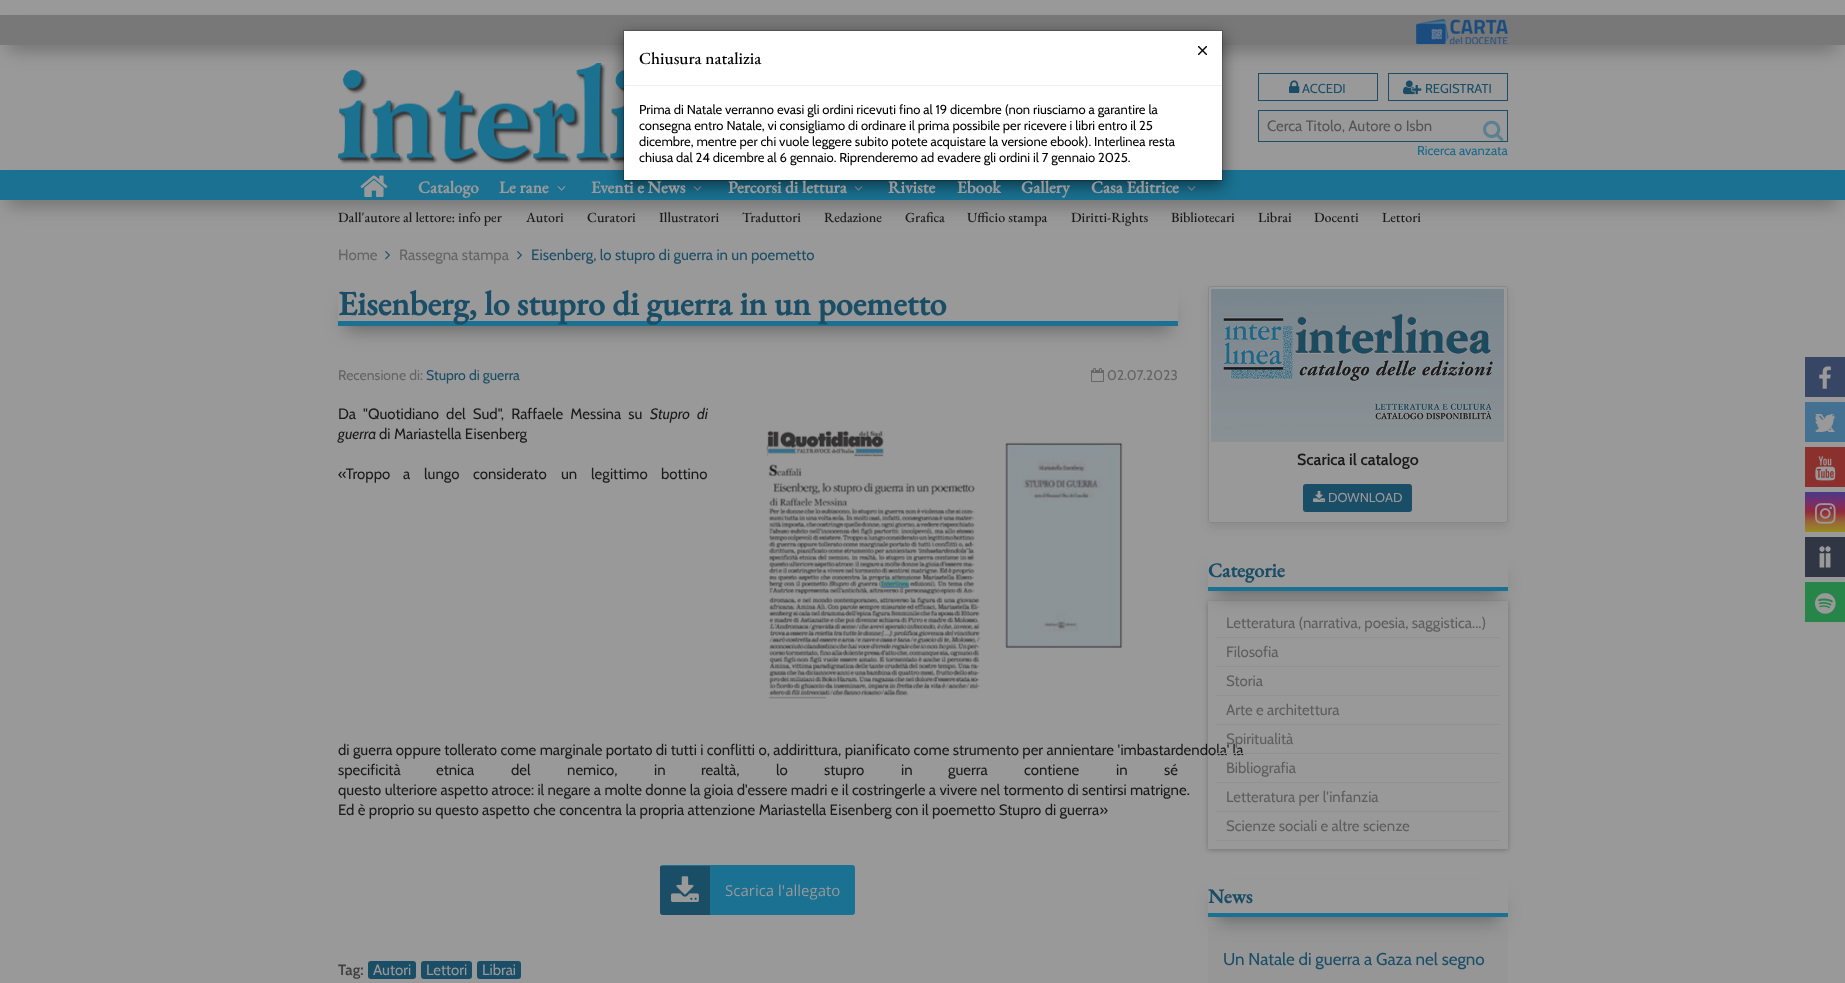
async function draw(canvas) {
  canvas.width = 1845
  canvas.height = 983
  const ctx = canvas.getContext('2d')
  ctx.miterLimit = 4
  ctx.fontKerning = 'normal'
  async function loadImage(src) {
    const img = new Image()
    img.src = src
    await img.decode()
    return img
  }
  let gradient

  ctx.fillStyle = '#999'
  ctx.fillRect(0, 0, 1845, 983)
  ctx.fillStyle = '#666'
  ctx.filter = 'blur(9px)'
  ctx.beginPath()
  ctx.rect(8, 35, 1829, 14)
  ctx.fill()
  ctx.filter = 'none'
  ctx.fillStyle = '#787879'
  ctx.fillRect(0, 15, 1845, 30)
  ctx.fillStyle = '#666'
  ctx.filter = 'blur(9px)'
  ctx.beginPath()
  ctx.rect(8, 190, 1829, 14)
  ctx.fill()
  ctx.filter = 'none'
  ctx.drawImage(await loadImage('image2.png'), 338, 63, 286, 102)
  ctx.fillStyle = '#1a7191'
  ctx.fillRect(0, 170, 1845, 30)
  ctx.drawImage(await loadImage('image7.png'), 693, 186, 9, 5)
  ctx.drawImage(await loadImage('image7.png'), 854, 186, 9, 5)
  ctx.drawImage(await loadImage('image7.png'), 1187, 186, 9, 5)
  ctx.fillStyle = '#00000080'
  ctx.filter = 'blur(7.5px)'
  ctx.beginPath()
  ctx.rect(623, 35, 600, 151)
  ctx.fill()
  ctx.filter = 'none'
  ctx.fillStyle = '#fff'
  ctx.fillRect(624, 31, 598, 149)
  ctx.strokeStyle = '#00000033'
  ctx.strokeRect(623.5, 30.5, 599, 150)
  ctx.fillStyle = '#efefef'
  ctx.fillRect(624, 85, 598, 1)
  ctx.drawImage(await loadImage('image0.png'), 1198, 46, 9, 9)
  ctx.font = '500 17px EB Garamond'
  ctx.fillStyle = '#000'
  ctx.fillText('Chiusura natalizia', 639, 64)
  ctx.font = '13px Cabin'
  ctx.fillText('Prima di Natale verranno evasi gli ordini ricevuti fino al 19 dicembre (non riusciamo a garantire la', 639, 114)
  ctx.fillText('consegna entro Natale, vi consigliamo di ordinare il prima possibile per ricevere i libri entro il 25', 639, 130)
  ctx.fillText('dicembre, mentre per chi vuole leggere subito potete acquistare la versione ebook). Interlinea resta', 639, 146)
  ctx.fillText('chiusa dal 24 dicembre al 6 gennaio. Riprenderemo ad evadere gli ordini il 7 gennaio 2025.', 639, 162)
  ctx.drawImage(await loadImage('image1.png'), 1416, 19, 92, 25)
  ctx.strokeStyle = '#1a4d66'
  ctx.strokeRect(1258.5, 73.5, 119, 27)
  ctx.drawImage(await loadImage('image3.png'), 1289, 80, 11, 13)
  ctx.fillStyle = '#1a4d66'
  ctx.fillText('ACCEDI', 1302, 93)
  ctx.strokeRect(1388.5, 73.5, 119, 27)
  ctx.drawImage(await loadImage('image4.png'), 1403, 80, 19, 15)
  ctx.fillText('REGISTRATI', 1425, 93)
  ctx.strokeRect(1258.5, 110.5, 249, 31)
  ctx.font = '15px Cabin'
  ctx.fillStyle = '#545454'
  ctx.fillText('Cerca Titolo, Autore o Isbn', 1267, 131)
  ctx.drawImage(await loadImage('image5.png'), 1483, 120, 21, 21)
  ctx.font = '13px Cabin'
  ctx.fillStyle = '#1a698b'
  ctx.fillText('Ricerca avanzata', 1417, 155)
  ctx.drawImage(await loadImage('image6.png'), 360, 175, 28, 22)
  ctx.font = 'bold 17px EB Garamond'
  ctx.fillStyle = '#999'
  ctx.fillText('Catalogo', 418, 193)
  ctx.fillText('Le rane', 499, 193)
  ctx.drawImage(await loadImage('image7.png'), 557, 186, 9, 5)
  ctx.fillText('Eventi e News', 591, 193)
  ctx.fillText('Percorsi di lettura', 728, 193)
  ctx.fillText('Riviste', 888, 193)
  ctx.fillText('Ebook', 957, 193)
  ctx.fillText('Gallery', 1021, 193)
  ctx.fillText('Casa Editrice', 1091, 193)
  ctx.font = '500 14px EB Garamond'
  ctx.fillStyle = '#1a1a1a'
  ctx.fillText('Dall\'autore al lettore: info per', 338, 222)
  ctx.fillText('Autori', 526, 222)
  ctx.fillText('Curatori', 587, 222)
  ctx.fillText('Illustratori', 659, 222)
  ctx.fillText('Traduttori', 742, 222)
  ctx.fillText('Redazione', 824, 222)
  ctx.fillText('Grafica', 905, 222)
  ctx.fillText('Ufficio stampa', 967, 222)
  ctx.fillText('Diritti-Rights', 1071, 222)
  ctx.fillText('Bibliotecari', 1171, 222)
  ctx.fillText('Librai', 1258, 222)
  ctx.fillText('Docenti', 1314, 222)
  ctx.fillText('Lettori', 1382, 222)
  ctx.font = '15px Cabin'
  ctx.fillStyle = '#636466'
  ctx.fillText('Home', 338, 260)
  ctx.drawImage(await loadImage('image8.png'), 385, 251, 5, 9)
  ctx.fillText('Rassegna stampa', 399, 260)
  ctx.drawImage(await loadImage('image8.png'), 517, 251, 5, 9)
  ctx.fillStyle = '#1a4d66'
  ctx.fillText('Eisenberg, lo stupro di guerra in un poemetto', 531, 260)
  ctx.save()
  ctx.beginPath()
  ctx.moveTo(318, 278)
  ctx.lineTo(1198, 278)
  ctx.lineTo(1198, 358)
  ctx.lineTo(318, 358)
  ctx.closePath()
  ctx.moveTo(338, 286)
  ctx.lineTo(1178, 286)
  ctx.lineTo(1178, 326)
  ctx.lineTo(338, 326)
  ctx.closePath()
  ctx.clip('evenodd')
  ctx.fillStyle = '#666'
  ctx.filter = 'blur(9px)'
  ctx.beginPath()
  ctx.rect(346, 306, 824, 24)
  ctx.fill()
  ctx.filter = 'none'
  ctx.restore()
  ctx.fillStyle = '#1a7191'
  ctx.fillRect(338, 321, 840, 5)
  ctx.font = 'bold 34px EB Garamond'
  ctx.fillStyle = '#1a4d66'
  ctx.fillText('Eisenberg, lo stupro di guerra in un poemetto', 338, 315)
  ctx.font = '14px Cabin'
  ctx.fillStyle = '#636466'
  ctx.fillText('Recensione di:', 338, 380)
  ctx.fillStyle = '#1a4d66'
  ctx.fillText('Stupro di guerra', 426, 380)
  ctx.drawImage(await loadImage('image9.png'), 1091, 368, 13, 14)
  ctx.fillStyle = '#636466'
  ctx.fillText('02.07.2023', 1107, 380)
  ctx.wordSpacing = '3.75px'
  ctx.font = '15px Cabin'
  ctx.fillStyle = '#1a1a1a'
  ctx.fillText('Da "Quotidiano del Sud", Raffaele Messina su', 338, 419)
  ctx.wordSpacing = '4px'
  ctx.font = 'italic 15px Cabin'
  ctx.fillText('Stupro di', 650, 419)
  ctx.wordSpacing = '0px'
  ctx.fillText('guerra', 338, 439)
  ctx.font = '15px Cabin'
  ctx.fillText('di Mariastella Eisenberg', 379, 439)
  ctx.drawImage(await loadImage('image10.png'), 766, 430, 357, 269)
  ctx.fillText('«Troppo', 338, 479)
  ctx.fillText('a', 403, 479)
  ctx.fillText('lungo', 424, 479)
  ctx.fillText('considerato', 473, 479)
  ctx.fillText('un', 561, 479)
  ctx.fillText('legittimo', 591, 479)
  ctx.fillText('bottino', 661, 479)
  ctx.fillText('di guerra oppure tollerato come marginale portato di tutti i conflitti o, addirittura, pianificato come strumento per annientare \'imbastardendola\' la', 338, 755)
  ctx.fillText('specificità', 338, 775)
  ctx.fillText('etnica', 436, 775)
  ctx.fillText('del', 511, 775)
  ctx.fillText('nemico,', 567, 775)
  ctx.fillText('in', 654, 775)
  ctx.fillText('realtà,', 701, 775)
  ctx.fillText('lo', 776, 775)
  ctx.fillText('stupro', 824, 775)
  ctx.fillText('in', 901, 775)
  ctx.fillText('guerra', 948, 775)
  ctx.fillText('contiene', 1024, 775)
  ctx.fillText('in', 1116, 775)
  ctx.fillText('sé', 1164, 775)
  ctx.fillText('questo ulteriore aspetto atroce: il negare a molte donne la gioia d\'essere madri e il costringerle a vivere nel tormento di sentirsi matrigne.', 338, 795)
  ctx.fillText('Ed è proprio su questo aspetto che concentra la propria attenzione Mariastella Eisenberg con il poemetto Stupro di guerra»', 338, 815)
  ctx.fillStyle = '#1a7191'
  ctx.beginPath()
  ctx.roundRect(660, 865, 195, 50, 3)
  ctx.fill()
  ctx.save()
  ctx.beginPath()
  ctx.roundRect(660, 865, 195, 50, 3)
  ctx.clip()
  ctx.fillStyle = '#1a4d66'
  ctx.beginPath()
  ctx.roundRect(660, 866, 50, 49, [0, 0, 0, 3])
  ctx.fill()
  ctx.restore()
  ctx.drawImage(await loadImage('image11.png'), 671, 876, 28, 26)
  ctx.font = '15px Open Sans'
  ctx.fillStyle = '#999'
  ctx.fillText('Scarica l\'allegato', 725, 896)
  ctx.font = '600 15px Cabin'
  ctx.fillStyle = '#404040'
  ctx.fillText('Tag:', 338, 975)
  ctx.fillStyle = '#1a4d66'
  ctx.beginPath()
  ctx.roundRect(368, 961, 48, 18, 3)
  ctx.fill()
  ctx.font = '15px Cabin'
  ctx.fillStyle = '#999'
  ctx.fillText('Autori', 373, 975)
  ctx.fillStyle = '#1a4d66'
  ctx.beginPath()
  ctx.roundRect(421, 961, 51, 18, 3)
  ctx.fill()
  ctx.fillStyle = '#999'
  ctx.fillText('Lettori', 426, 975)
  ctx.fillStyle = '#1a4d66'
  ctx.beginPath()
  ctx.roundRect(477, 961, 44, 18, 3)
  ctx.fill()
  ctx.fillStyle = '#999'
  ctx.fillText('Librai', 482, 975)
  ctx.save()
  ctx.beginPath()
  ctx.moveTo(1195, 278)
  ctx.lineTo(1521, 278)
  ctx.lineTo(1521, 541)
  ctx.lineTo(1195, 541)
  ctx.closePath()
  ctx.moveTo(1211, 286)
  ctx.lineTo(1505, 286)
  ctx.bezierCurveTo(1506.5, 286, 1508, 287.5, 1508, 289)
  ctx.lineTo(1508, 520)
  ctx.bezierCurveTo(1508, 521.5, 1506.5, 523, 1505, 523)
  ctx.lineTo(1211, 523)
  ctx.bezierCurveTo(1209.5, 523, 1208, 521.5, 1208, 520)
  ctx.lineTo(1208, 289)
  ctx.bezierCurveTo(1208, 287.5, 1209.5, 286, 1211, 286)
  ctx.closePath()
  ctx.clip('evenodd')
  ctx.fillStyle = '#1a1a1a1a'
  ctx.filter = 'blur(4px)'
  ctx.beginPath()
  ctx.roundRect(1208, 291, 300, 237, 3)
  ctx.fill()
  ctx.filter = 'none'
  ctx.restore()
  ctx.beginPath()
  ctx.roundRect(1208.5, 286.5, 299, 236, 2.5)
  ctx.strokeStyle = '#888'
  ctx.stroke()
  ctx.drawImage(await loadImage('image12.png'), 1211, 289, 293, 153)
  ctx.font = '600 16px Cabin'
  ctx.fillStyle = '#1a1a1a'
  ctx.fillText('Scarica il catalogo', 1297, 465)
  ctx.fillStyle = '#1a4d66'
  ctx.beginPath()
  ctx.roundRect(1303, 484, 109, 28, 3)
  ctx.fill()
  ctx.drawImage(await loadImage('image13.png'), 1313, 490, 13, 12)
  ctx.font = '13px Cabin'
  ctx.fillStyle = '#999'
  ctx.fillText('DOWNLOAD', 1328, 502)
  ctx.save()
  ctx.beginPath()
  ctx.moveTo(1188, 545)
  ctx.lineTo(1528, 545)
  ctx.lineTo(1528, 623)
  ctx.lineTo(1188, 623)
  ctx.closePath()
  ctx.moveTo(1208, 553)
  ctx.lineTo(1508, 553)
  ctx.lineTo(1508, 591)
  ctx.lineTo(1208, 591)
  ctx.closePath()
  ctx.clip('evenodd')
  ctx.fillStyle = '#666'
  ctx.filter = 'blur(9px)'
  ctx.beginPath()
  ctx.rect(1216, 573, 284, 22)
  ctx.fill()
  ctx.filter = 'none'
  ctx.restore()
  ctx.fillStyle = '#1a7191'
  ctx.fillRect(1208, 587, 300, 4)
  ctx.font = 'bold 20px EB Garamond'
  ctx.fillStyle = '#1a4d66'
  ctx.fillText('Categorie', 1208, 577)
  ctx.save()
  ctx.beginPath()
  ctx.moveTo(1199, 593)
  ctx.lineTo(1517, 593)
  ctx.lineTo(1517, 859)
  ctx.lineTo(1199, 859)
  ctx.closePath()
  ctx.moveTo(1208, 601)
  ctx.lineTo(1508, 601)
  ctx.lineTo(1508, 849)
  ctx.lineTo(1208, 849)
  ctx.closePath()
  ctx.clip('evenodd')
  ctx.fillStyle = '#1a1a1a4d'
  ctx.filter = 'blur(2.5px)'
  ctx.beginPath()
  ctx.rect(1208, 602, 300, 248)
  ctx.fill()
  ctx.filter = 'none'
  ctx.restore()
  ctx.fillStyle = '#919191'
  ctx.fillRect(1216, 637, 284, 1)
  ctx.font = '15px Cabin'
  ctx.fillStyle = '#5e5e5e'
  ctx.fillText('Letteratura (narrativa, poesia, saggistica...)', 1226, 628)
  ctx.fillStyle = '#919191'
  ctx.fillRect(1216, 666, 284, 1)
  ctx.fillStyle = '#5e5e5e'
  ctx.fillText('Filosofia', 1226, 657)
  ctx.fillStyle = '#919191'
  ctx.fillRect(1216, 695, 284, 1)
  ctx.fillStyle = '#5e5e5e'
  ctx.fillText('Storia', 1226, 686)
  ctx.fillStyle = '#919191'
  ctx.fillRect(1216, 724, 284, 1)
  ctx.fillStyle = '#5e5e5e'
  ctx.fillText('Arte e architettura', 1226, 715)
  ctx.fillStyle = '#919191'
  ctx.fillRect(1216, 753, 284, 1)
  ctx.fillStyle = '#5e5e5e'
  ctx.fillText('Spiritualità', 1226, 744)
  ctx.fillStyle = '#919191'
  ctx.fillRect(1216, 782, 284, 1)
  ctx.fillStyle = '#5e5e5e'
  ctx.fillText('Bibliografia', 1226, 773)
  ctx.fillStyle = '#919191'
  ctx.fillRect(1216, 811, 284, 1)
  ctx.fillStyle = '#5e5e5e'
  ctx.fillText('Letteratura per l\'infanzia', 1226, 802)
  ctx.fillStyle = '#919191'
  ctx.fillRect(1216, 840, 284, 1)
  ctx.fillStyle = '#5e5e5e'
  ctx.fillText('Scienze sociali e altre scienze', 1226, 831)
  ctx.fillStyle = '#969696'
  ctx.fillRect(1208, 927, 300, 56)
  ctx.save()
  ctx.beginPath()
  ctx.moveTo(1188, 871)
  ctx.lineTo(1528, 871)
  ctx.lineTo(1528, 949)
  ctx.lineTo(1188, 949)
  ctx.closePath()
  ctx.moveTo(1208, 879)
  ctx.lineTo(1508, 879)
  ctx.lineTo(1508, 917)
  ctx.lineTo(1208, 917)
  ctx.closePath()
  ctx.clip('evenodd')
  ctx.fillStyle = '#666'
  ctx.filter = 'blur(9px)'
  ctx.beginPath()
  ctx.rect(1216, 899, 284, 22)
  ctx.fill()
  ctx.filter = 'none'
  ctx.restore()
  ctx.fillStyle = '#1a7191'
  ctx.fillRect(1208, 913, 300, 4)
  ctx.font = 'bold 20px EB Garamond'
  ctx.fillStyle = '#1a4d66'
  ctx.fillText('News', 1208, 903)
  ctx.font = '17px Cabin'
  ctx.fillText('Un Natale di guerra a Gaza nel segno', 1223, 965)
  ctx.fillStyle = '#374665'
  ctx.fillRect(1805, 357, 40, 40)
  ctx.drawImage(await loadImage('image14.png'), 1819, 366, 12, 23)
  ctx.fillStyle = '#447091'
  ctx.fillRect(1805, 402, 40, 40)
  ctx.drawImage(await loadImage('image16.png'), 1815, 414, 20, 18)
  ctx.drawImage(await loadImage('image15.png'), 1814, 414, 22, 18)
  ctx.fillStyle = '#8c302d'
  ctx.fillRect(1805, 447, 40, 40)
  ctx.drawImage(await loadImage('image17.png'), 1815, 456, 21, 25)
  gradient = ctx.createLinearGradient(1825, 492, 1825, 532)
  gradient.addColorStop(0, '#483985')
  gradient.addColorStop(0.25, '#762e6d')
  gradient.addColorStop(0.5, '#932a3a')
  gradient.addColorStop(0.75, '#986736')
  gradient.addColorStop(1, '#998a21')
  ctx.fillStyle = gradient
  ctx.fillRect(1805, 492, 40, 40)
  ctx.drawImage(await loadImage('image18.png'), 1815, 503, 21, 21)
  ctx.fillStyle = '#303644'
  ctx.fillRect(1805, 537, 40, 40)
  ctx.drawImage(await loadImage('image19.png'), 1819, 546, 12, 22)
  ctx.fillStyle = '#28854a'
  ctx.fillRect(1805, 582, 40, 40)
  ctx.drawImage(await loadImage('image20.png'), 1815, 593, 21, 21)
}

draw(document.querySelector('canvas'))
